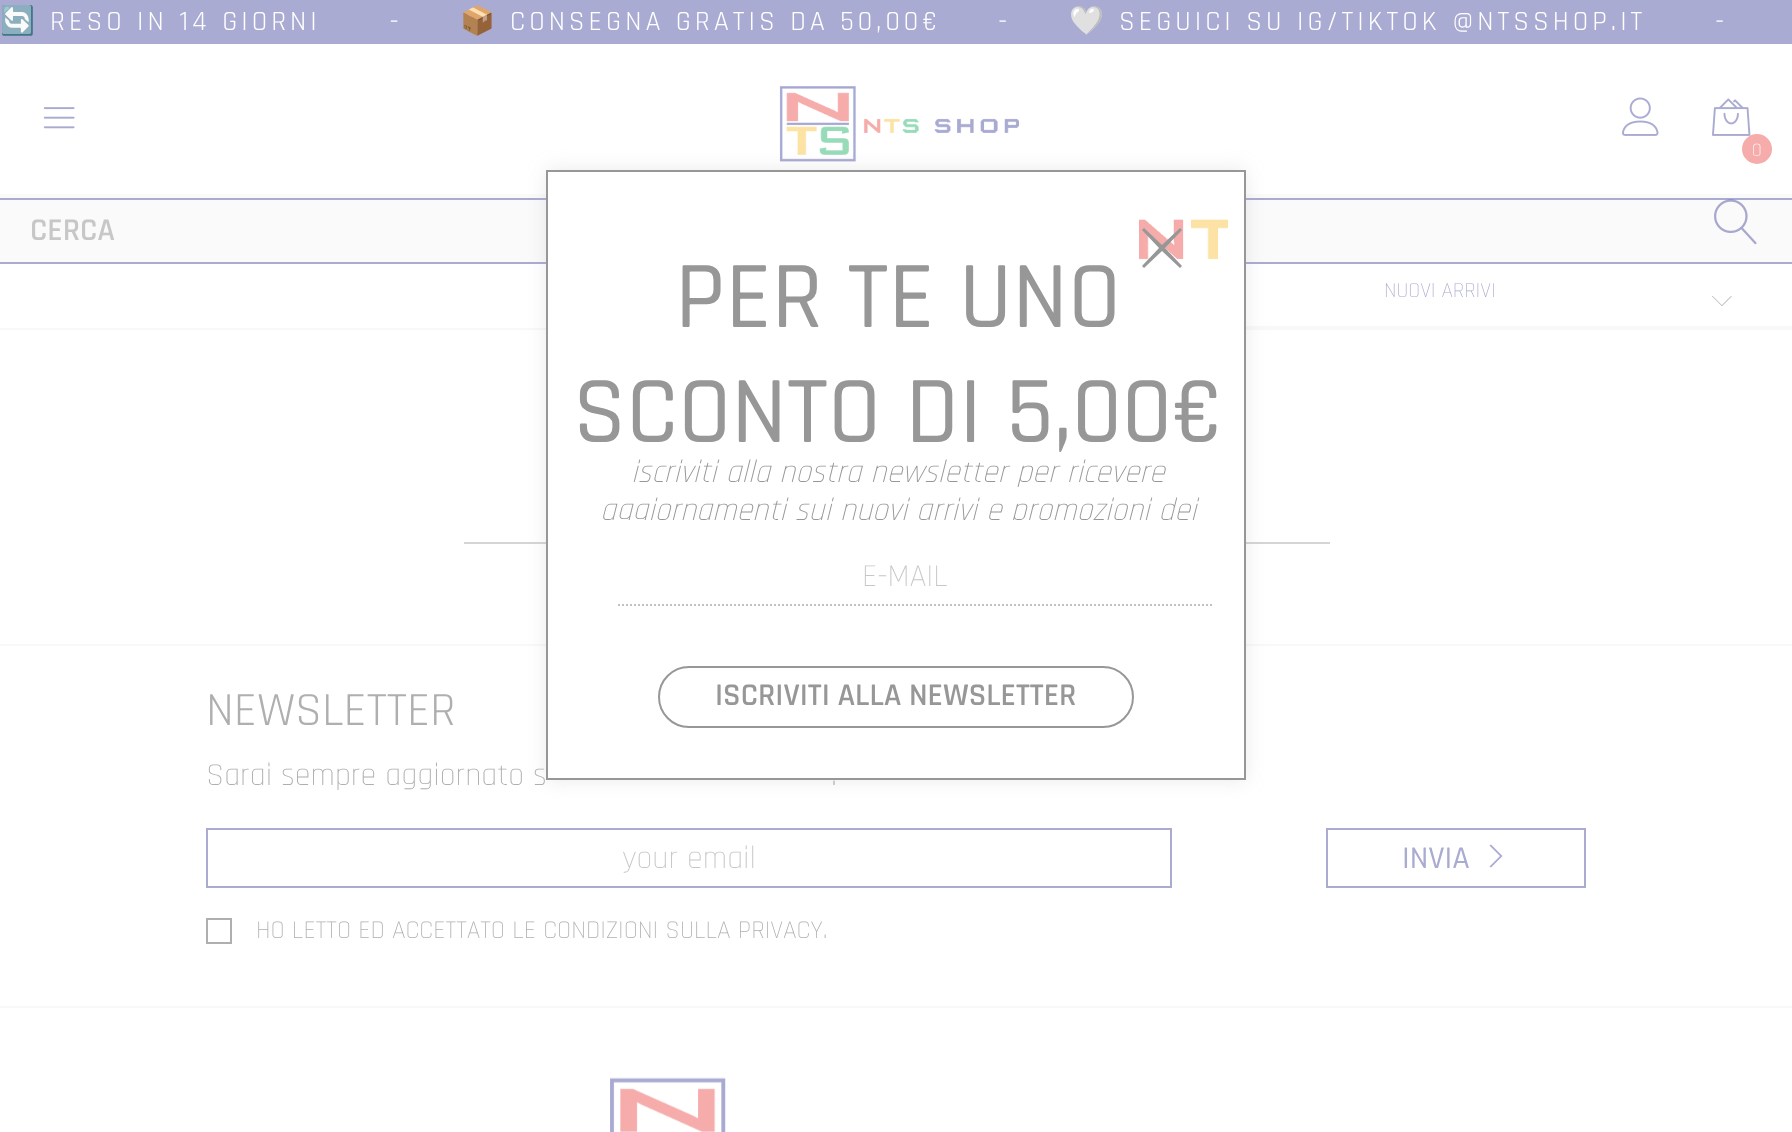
async function draw(canvas) {
  canvas.width = 1792
  canvas.height = 1132
  const ctx = canvas.getContext('2d')
  ctx.miterLimit = 4
  ctx.fontKerning = 'normal'
  async function loadImage(src) {
    const img = new Image()
    img.src = src
    await img.decode()
    return img
  }

  ctx.fillStyle = '#fff'
  ctx.fillRect(0, 0, 1792, 1132)
  ctx.fillStyle = '#aaabd3'
  ctx.fillRect(0, 0, 1792, 44)
  ctx.letterSpacing = '4px'
  ctx.font = '28px Noto Color Emoji'
  ctx.fillStyle = '#fff'
  ctx.fillText('🔄', 0, 30)
  ctx.font = '28px Rajdhani'
  ctx.fillText('RESO IN 14 GIORNI      -', 50, 30)
  ctx.font = '28px Noto Color Emoji'
  ctx.fillText('📦', 460, 30)
  ctx.font = '28px Rajdhani'
  ctx.fillText('CONSEGNA GRATIS DA 50,00€     -', 510, 30)
  ctx.font = '28px Noto Color Emoji'
  ctx.fillText('🤍', 1069, 30)
  ctx.font = '28px Rajdhani'
  ctx.fillText('SEGUICI SU IG/TIKTOK @NTSSHOP.IT      -', 1119, 30)
  ctx.drawImage(await loadImage('image0.png'), 43, 107, 32, 22)
  ctx.drawImage(await loadImage('image1.png'), 779, 86, 240, 76)
  ctx.drawImage(await loadImage('image2.png'), 1622, 97, 37, 39)
  ctx.drawImage(await loadImage('image3.png'), 1712, 98, 39, 38)
  ctx.fillStyle = '#f5acab'
  ctx.beginPath()
  ctx.arc(1757, 149, 13, 0, 2 * Math.PI)
  ctx.fill()
  ctx.strokeStyle = '#f5acab'
  ctx.lineWidth = 4
  ctx.stroke()
  ctx.letterSpacing = '0px'
  ctx.font = '300 19px Rajdhani'
  ctx.fillStyle = '#fff'
  ctx.fillText('0', 1752, 156)
  ctx.fillStyle = '#fafafa'
  ctx.fillRect(0, 194, 1792, 68)
  ctx.fillStyle = '#aaabd1'
  ctx.fillRect(0, 198, 1792, 2)
  ctx.fillRect(0, 262, 1792, 2)
  ctx.font = '600 32px Rajdhani'
  ctx.fillStyle = '#c7c7c7'
  ctx.fillText('CERCA', 30, 240)
  ctx.drawImage(await loadImage('image4.png'), 1714, 199, 43, 46)
  ctx.fillStyle = '#f8f8f8'
  ctx.fillRect(0, 328, 1792, 2)
  ctx.fillRect(1246, 326, 546, 2)
  ctx.fillStyle = '#d5d5d5'
  ctx.fillRect(464, 542, 866, 2)
  ctx.fillStyle = '#f8f8f8'
  ctx.fillRect(0, 644, 1792, 2)
  ctx.fillStyle = '#97979733'
  ctx.filter = 'blur(10px)'
  ctx.beginPath()
  ctx.rect(546, 170, 700, 610)
  ctx.fill()
  ctx.filter = 'none'
  ctx.fillStyle = '#fff'
  ctx.beginPath()
  ctx.rect(547, 171, 698, 608)
  ctx.fill()
  ctx.strokeStyle = '#979797'
  ctx.lineWidth = 2
  ctx.stroke()
  ctx.drawImage(await loadImage('image5.png'), 1139, 219, 89, 41)
  ctx.fillStyle = '#979797'
  ctx.beginPath()
  ctx.moveTo(1144, 228)
  ctx.lineTo(1142, 230)
  ctx.lineTo(1159, 248)
  ctx.lineTo(1142, 266)
  ctx.lineTo(1144, 268)
  ctx.lineTo(1162, 251)
  ctx.lineTo(1180, 268)
  ctx.lineTo(1182, 266)
  ctx.lineTo(1165, 248)
  ctx.lineTo(1182, 230)
  ctx.lineTo(1180, 228)
  ctx.lineTo(1162, 245)
  ctx.closePath()
  ctx.fill()
  ctx.font = '500 96px Rajdhani'
  ctx.fillText('PER TE UNO', 675, 327)
  ctx.fillText('SCONTO DI 5,00€', 573, 442)
  ctx.font = 'italic 300 32px Rajdhani'
  ctx.fillText('iscriviti alla nostra newsletter per ricevere', 631, 482)
  ctx.save()
  ctx.beginPath()
  ctx.rect(568, 192, 660, 328)
  ctx.clip()
  ctx.fillText('aggiornamenti sui nuovi arrivi e promozioni dei', 600, 520)
  ctx.restore()
  ctx.beginPath()
  ctx.moveTo(618, 605)
  ctx.lineTo(1214, 605)
  ctx.strokeStyle = '#c1c1c1'
  ctx.setLineDash([2, 2])
  ctx.stroke()
  ctx.font = '300 32px Rajdhani'
  ctx.fillStyle = '#c7c7c7'
  ctx.fillText('E-MAIL', 862, 586)
  ctx.beginPath()
  ctx.roundRect(659, 667, 474, 60, 30)
  ctx.strokeStyle = '#979797'
  ctx.setLineDash([])
  ctx.stroke()
  ctx.font = '600 32px Rajdhani'
  ctx.fillStyle = '#979797'
  ctx.fillText('ISCRIVITI ALLA NEWSLETTER', 715, 705)
  ctx.drawImage(await loadImage('image6.png'), 1712, 296, 20, 10)
  ctx.font = '300 21.5px Rajdhani'
  ctx.fillStyle = '#aaabd1'
  ctx.fillText('NUOVI ARRIVI', 1384, 297)
  ctx.fillStyle = '#f8f8f8'
  ctx.fillRect(0, 1006, 1792, 2)
  ctx.font = '48px Rajdhani'
  ctx.fillStyle = '#afafae'
  ctx.fillText('NEWSLETTER', 206, 725)
  ctx.font = '300 32px Rajdhani'
  ctx.fillText('Sarai sempre aggiornato s', 206, 785)
  ctx.fillText('.', 831, 785)
  ctx.strokeStyle = '#aaabd1'
  ctx.strokeRect(207, 829, 964, 58)
  ctx.fillStyle = '#c7c7c7'
  ctx.fillText('your email', 622, 868)
  ctx.strokeRect(1327, 829, 258, 58)
  ctx.font = '500 32px Rajdhani'
  ctx.fillStyle = '#aaabd1'
  ctx.fillText('INVIA', 1402, 868)
  ctx.beginPath()
  ctx.moveTo(1491, 844.5)
  ctx.lineTo(1489.5, 845.5)
  ctx.lineTo(1500, 856)
  ctx.lineTo(1489.5, 866.5)
  ctx.lineTo(1491, 867.5)
  ctx.lineTo(1502.5, 856)
  ctx.closePath()
  ctx.fill()
  ctx.strokeStyle = '#afafae'
  ctx.strokeRect(207, 919, 24, 24)
  ctx.font = '300 25.6px Rajdhani'
  ctx.fillStyle = '#afafae'
  ctx.fillText('HO LETTO ED ACCETTATO LE CONDIZIONI SULLA PRIVACY.', 256, 938)
  ctx.drawImage(await loadImage('image7.png'), 610, 1077, 116, 55)
}

draw(document.querySelector('canvas'))
